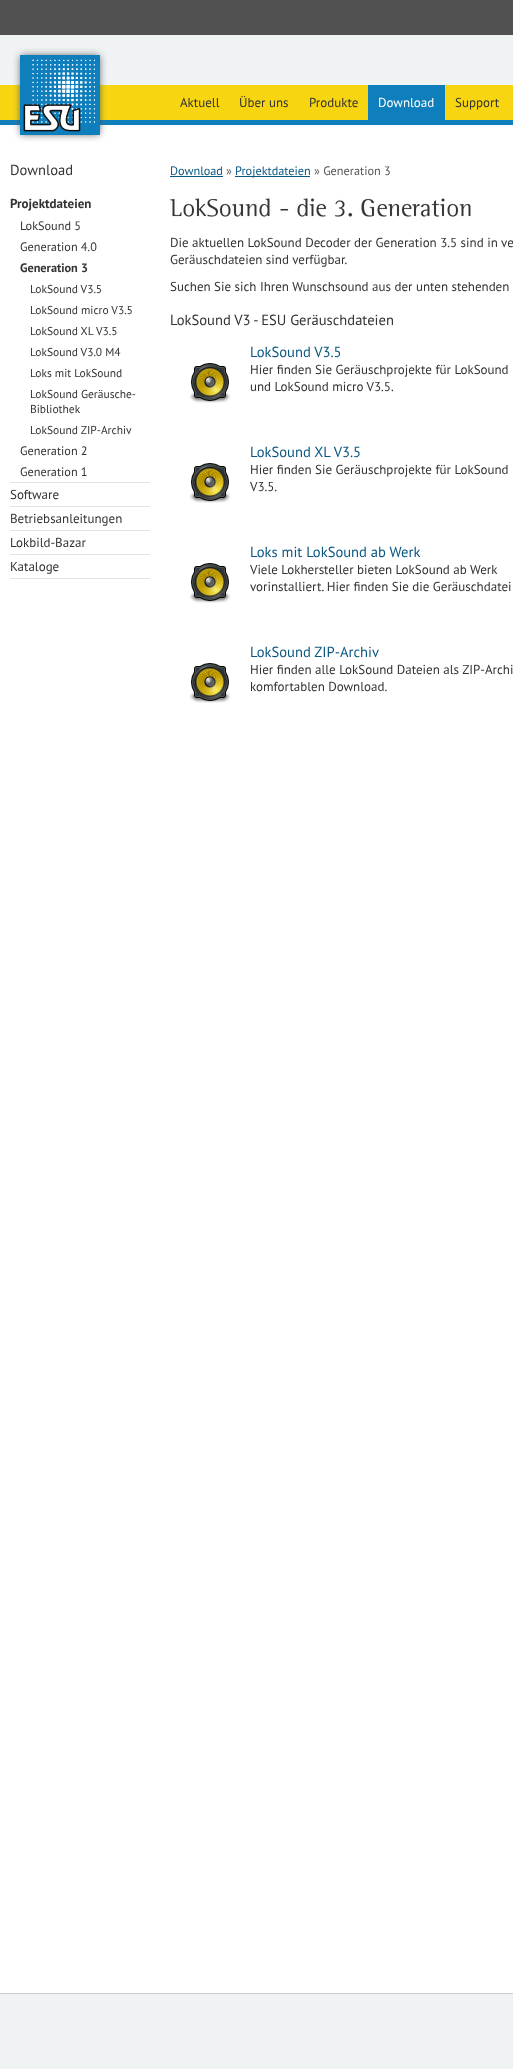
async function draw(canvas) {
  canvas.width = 513
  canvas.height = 2069
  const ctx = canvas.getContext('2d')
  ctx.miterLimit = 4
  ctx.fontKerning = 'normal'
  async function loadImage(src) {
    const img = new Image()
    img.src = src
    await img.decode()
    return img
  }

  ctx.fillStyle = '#fff'
  ctx.fillRect(0, 0, 513, 2069)
  ctx.fillStyle = '#515151'
  ctx.fillRect(0, 0, 513, 35)
  ctx.fillStyle = '#eff3f4'
  ctx.fillRect(0, 35, 513, 50)
  ctx.fillStyle = '#f7d510'
  ctx.fillRect(0, 85, 513, 35)
  ctx.fillStyle = '#0f7ebc'
  ctx.fillRect(0, 120, 513, 5)
  ctx.drawImage(await loadImage('image0.png'), 13, 48, 94, 94)
  ctx.font = '13px PT Sans'
  ctx.fillStyle = '#333'
  ctx.fillText('Aktuell', 180, 107)
  ctx.fillText('Über uns', 239, 107)
  ctx.fillText('Produkte', 309, 107)
  ctx.fillStyle = '#0f7ebc'
  ctx.fillRect(368, 85, 77, 35)
  ctx.fillStyle = '#fff'
  ctx.fillText('Download', 378, 107)
  ctx.fillStyle = '#333'
  ctx.fillText('Support', 455, 107)
  ctx.font = '14.6px PT Sans'
  ctx.fillText('Download', 10, 175)
  ctx.fillStyle = '#e1e3e9'
  ctx.fillRect(10, 482, 140, 1)
  ctx.font = 'bold 13px PT Sans'
  ctx.fillStyle = '#333'
  ctx.fillText('Projektdateien', 10, 208)
  ctx.font = '12.25px PT Sans'
  ctx.fillText('LokSound 5', 20, 230)
  ctx.fillText('Generation 4.0', 20, 251)
  ctx.font = 'bold 12.25px PT Sans'
  ctx.fillText('Generation 3', 20, 272)
  ctx.font = '11.5px PT Sans'
  ctx.fillText('LokSound V3.5', 30, 293)
  ctx.fillText('LokSound micro V3.5', 30, 314)
  ctx.fillText('LokSound XL V3.5', 30, 335)
  ctx.fillText('LokSound V3.0 M4', 30, 356)
  ctx.fillText('Loks mit LokSound', 30, 377)
  ctx.fillText('LokSound Geräusche-', 30, 398)
  ctx.fillText('Bibliothek', 30, 413)
  ctx.fillText('LokSound ZIP-Archiv', 30, 434)
  ctx.font = '12.25px PT Sans'
  ctx.fillText('Generation 2', 20, 455)
  ctx.fillText('Generation 1', 20, 476)
  ctx.fillStyle = '#e1e3e9'
  ctx.fillRect(10, 506, 140, 1)
  ctx.font = '13px PT Sans'
  ctx.fillStyle = '#333'
  ctx.fillText('Software', 10, 499)
  ctx.fillStyle = '#e1e3e9'
  ctx.fillRect(10, 530, 140, 1)
  ctx.fillStyle = '#333'
  ctx.fillText('Betriebsanleitungen', 10, 523)
  ctx.fillStyle = '#e1e3e9'
  ctx.fillRect(10, 554, 140, 1)
  ctx.fillStyle = '#333'
  ctx.fillText('Lokbild-Bazar', 10, 547)
  ctx.fillStyle = '#e1e3e9'
  ctx.fillRect(10, 578, 140, 1)
  ctx.fillStyle = '#333'
  ctx.fillText('Kataloge', 10, 571)
  ctx.font = '12.25px PT Sans'
  ctx.fillStyle = '#0a5782'
  ctx.fillText('Download', 170, 175)
  ctx.fillRect(170, 176, 53, 1)
  ctx.fillStyle = '#555'
  ctx.fillText('»', 226, 175)
  ctx.fillStyle = '#0a5782'
  ctx.fillRect(235, 176, 75, 1)
  ctx.fillText('Projektdateien', 235, 175)
  ctx.fillStyle = '#555'
  ctx.fillText('» Generation 3', 314, 175)
  ctx.drawImage(await loadImage('image1.png'), 170, 198, 301, 19)
  ctx.font = '13px PT Sans'
  ctx.fillStyle = '#333'
  ctx.fillText('Die aktuellen LokSound Decoder der Generation 3.5 sind in ve', 170, 247)
  ctx.fillText('Geräuschdateien sind verfügbar.', 170, 264)
  ctx.fillText('Suchen Sie sich Ihren Wunschsound aus der unten stehenden', 170, 291)
  ctx.font = '14.6px PT Sans'
  ctx.fillText('LokSound V3 - ESU Geräuschdateien', 170, 325)
  ctx.drawImage(await loadImage('image2.png'), 189, 363, 42, 40)
  ctx.fillStyle = '#0a5782'
  ctx.fillText('LokSound V3.5', 250, 357)
  ctx.font = '13px PT Sans'
  ctx.fillStyle = '#333'
  ctx.fillText('Hier finden Sie Geräuschprojekte für LokSound', 250, 374)
  ctx.fillText('und LokSound micro V3.5.', 250, 391)
  ctx.drawImage(await loadImage('image2.png'), 189, 463, 42, 40)
  ctx.font = '14.6px PT Sans'
  ctx.fillStyle = '#0a5782'
  ctx.fillText('LokSound XL V3.5', 250, 457)
  ctx.font = '13px PT Sans'
  ctx.fillStyle = '#333'
  ctx.fillText('Hier finden Sie Geräuschprojekte für LokSound', 250, 474)
  ctx.fillText('V3.5.', 250, 491)
  ctx.drawImage(await loadImage('image2.png'), 189, 563, 42, 40)
  ctx.font = '14.6px PT Sans'
  ctx.fillStyle = '#0a5782'
  ctx.fillText('Loks mit LokSound ab Werk', 250, 557)
  ctx.font = '13px PT Sans'
  ctx.fillStyle = '#333'
  ctx.fillText('Viele Lokhersteller bieten LokSound ab Werk', 250, 574)
  ctx.fillText('vorinstalliert. Hier finden Sie die Geräuschdatei', 250, 591)
  ctx.drawImage(await loadImage('image2.png'), 189, 663, 42, 40)
  ctx.font = '14.6px PT Sans'
  ctx.fillStyle = '#0a5782'
  ctx.fillText('LokSound ZIP-Archiv', 250, 657)
  ctx.font = '13px PT Sans'
  ctx.fillStyle = '#333'
  ctx.fillText('Hier finden alle LokSound Dateien als ZIP-Archi', 250, 674)
  ctx.fillText('komfortablen Download.', 250, 691)
  ctx.fillStyle = '#eff3f4'
  ctx.fillRect(0, 1994, 513, 75)
  ctx.fillStyle = '#ccc'
  ctx.fillRect(0, 1993, 513, 1)
}

draw(document.querySelector('canvas'))
